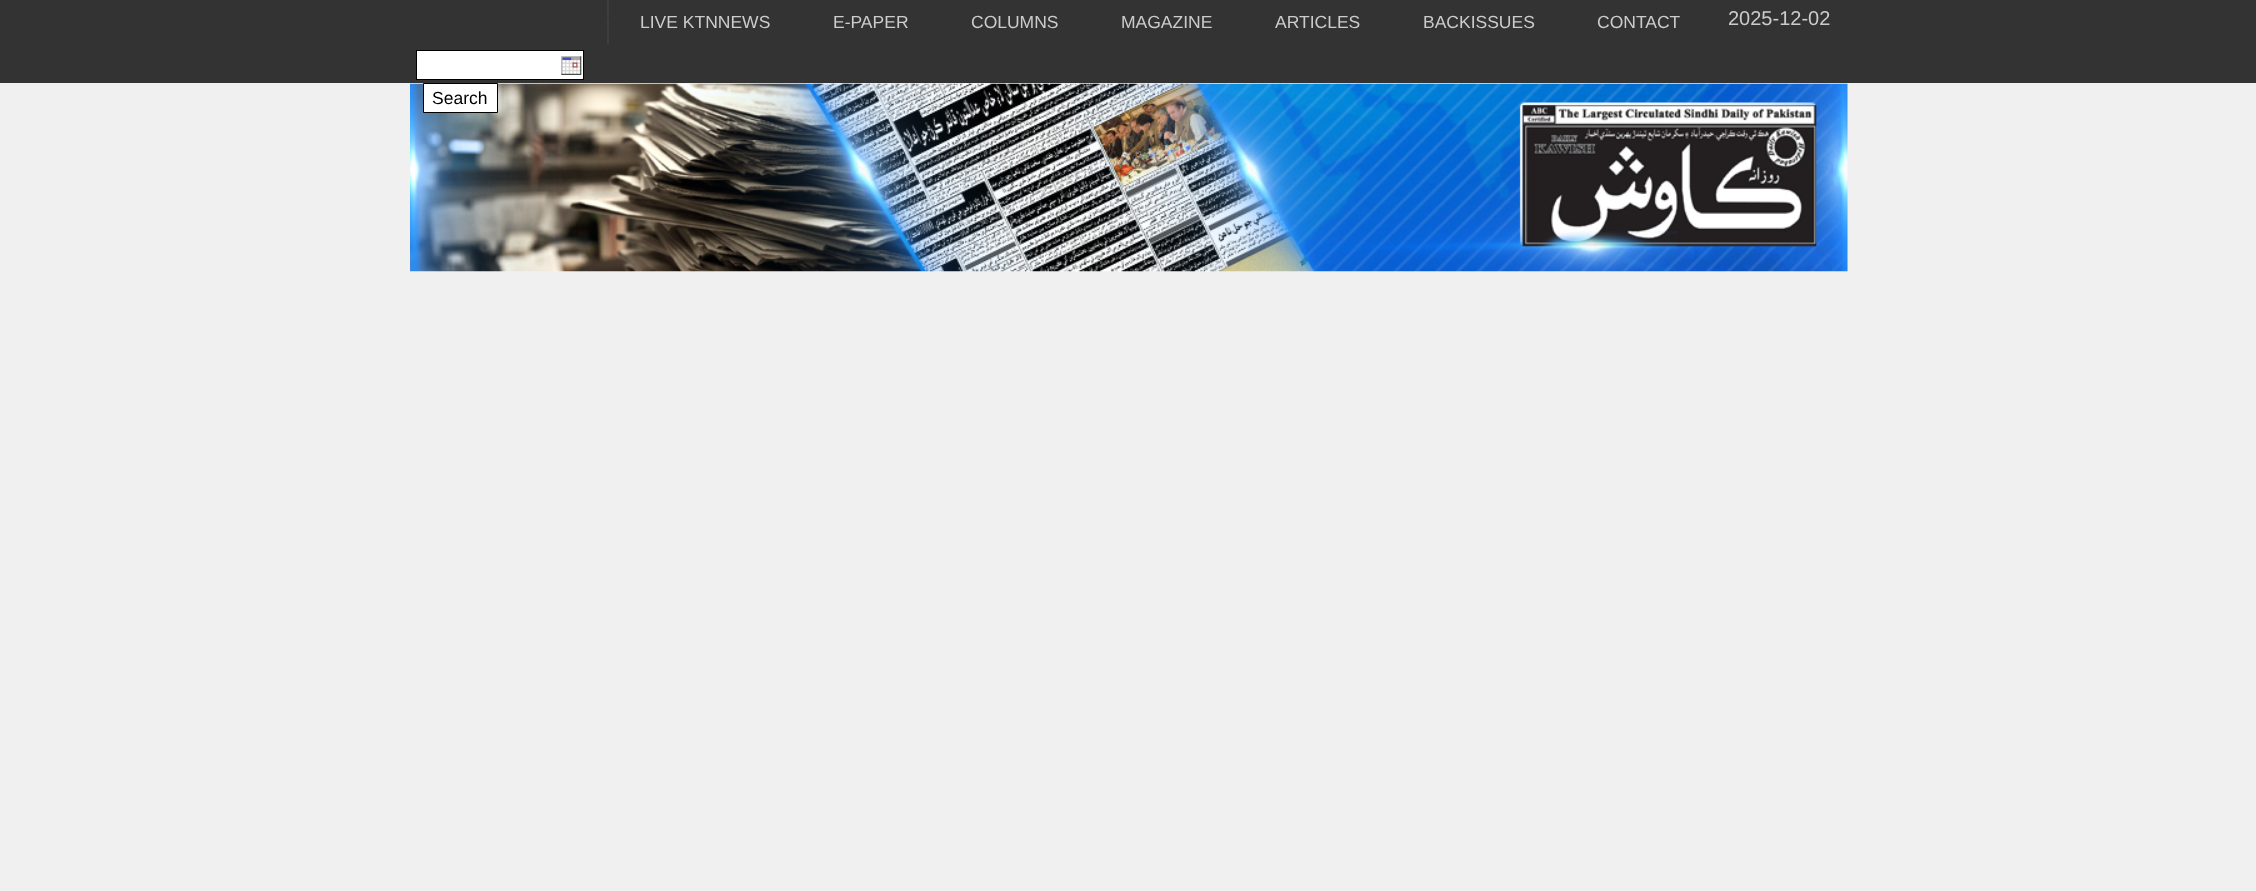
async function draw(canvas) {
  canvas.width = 2256
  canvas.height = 891
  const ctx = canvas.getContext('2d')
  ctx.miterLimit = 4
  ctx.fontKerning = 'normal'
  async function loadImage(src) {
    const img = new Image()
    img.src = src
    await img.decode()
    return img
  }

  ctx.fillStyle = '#f0f0f0'
  ctx.fillRect(0, 0, 2256, 891)
  ctx.fillStyle = '#333'
  ctx.fillRect(0, 0, 2256, 83)
  ctx.beginPath()
  ctx.moveTo(608, 0)
  ctx.lineTo(608, 44)
  ctx.strokeStyle = '#565656'
  ctx.lineWidth = 1.2
  ctx.setLineDash([1.25, 1.25])
  ctx.stroke()
  ctx.font = '17.5px Liberation Sans'
  ctx.fillStyle = '#ccc'
  ctx.fillText('LIVE KTNNEWS', 640, 28)
  ctx.fillText('E-PAPER', 833, 28)
  ctx.fillText('COLUMNS', 971, 28)
  ctx.fillText('MAGAZINE', 1121, 28)
  ctx.fillText('ARTICLES', 1275, 28)
  ctx.fillText('BACKISSUES', 1423, 28)
  ctx.fillText('CONTACT', 1597, 28)
  ctx.font = '20px Liberation Sans'
  ctx.fillText('2025-12-02', 1728, 25)
  ctx.fillStyle = '#fff'
  ctx.fillRect(417, 51, 166, 28)
  ctx.drawImage(await loadImage('image0.png'), 561, 56, 21, 19)
  ctx.strokeStyle = '#000'
  ctx.lineWidth = 1
  ctx.setLineDash([])
  ctx.strokeRect(416.5, 50.5, 167, 29)
  ctx.drawImage(await loadImage('image1.png'), 410, 83, 1438, 189)
  ctx.beginPath()
  ctx.rect(423.5, 83.5, 74, 29)
  ctx.fill()
  ctx.stroke()
  ctx.font = '17.5px Liberation Sans'
  ctx.fillStyle = '#000'
  ctx.fillText('Search', 432, 104)
}

draw(document.querySelector('canvas'))
